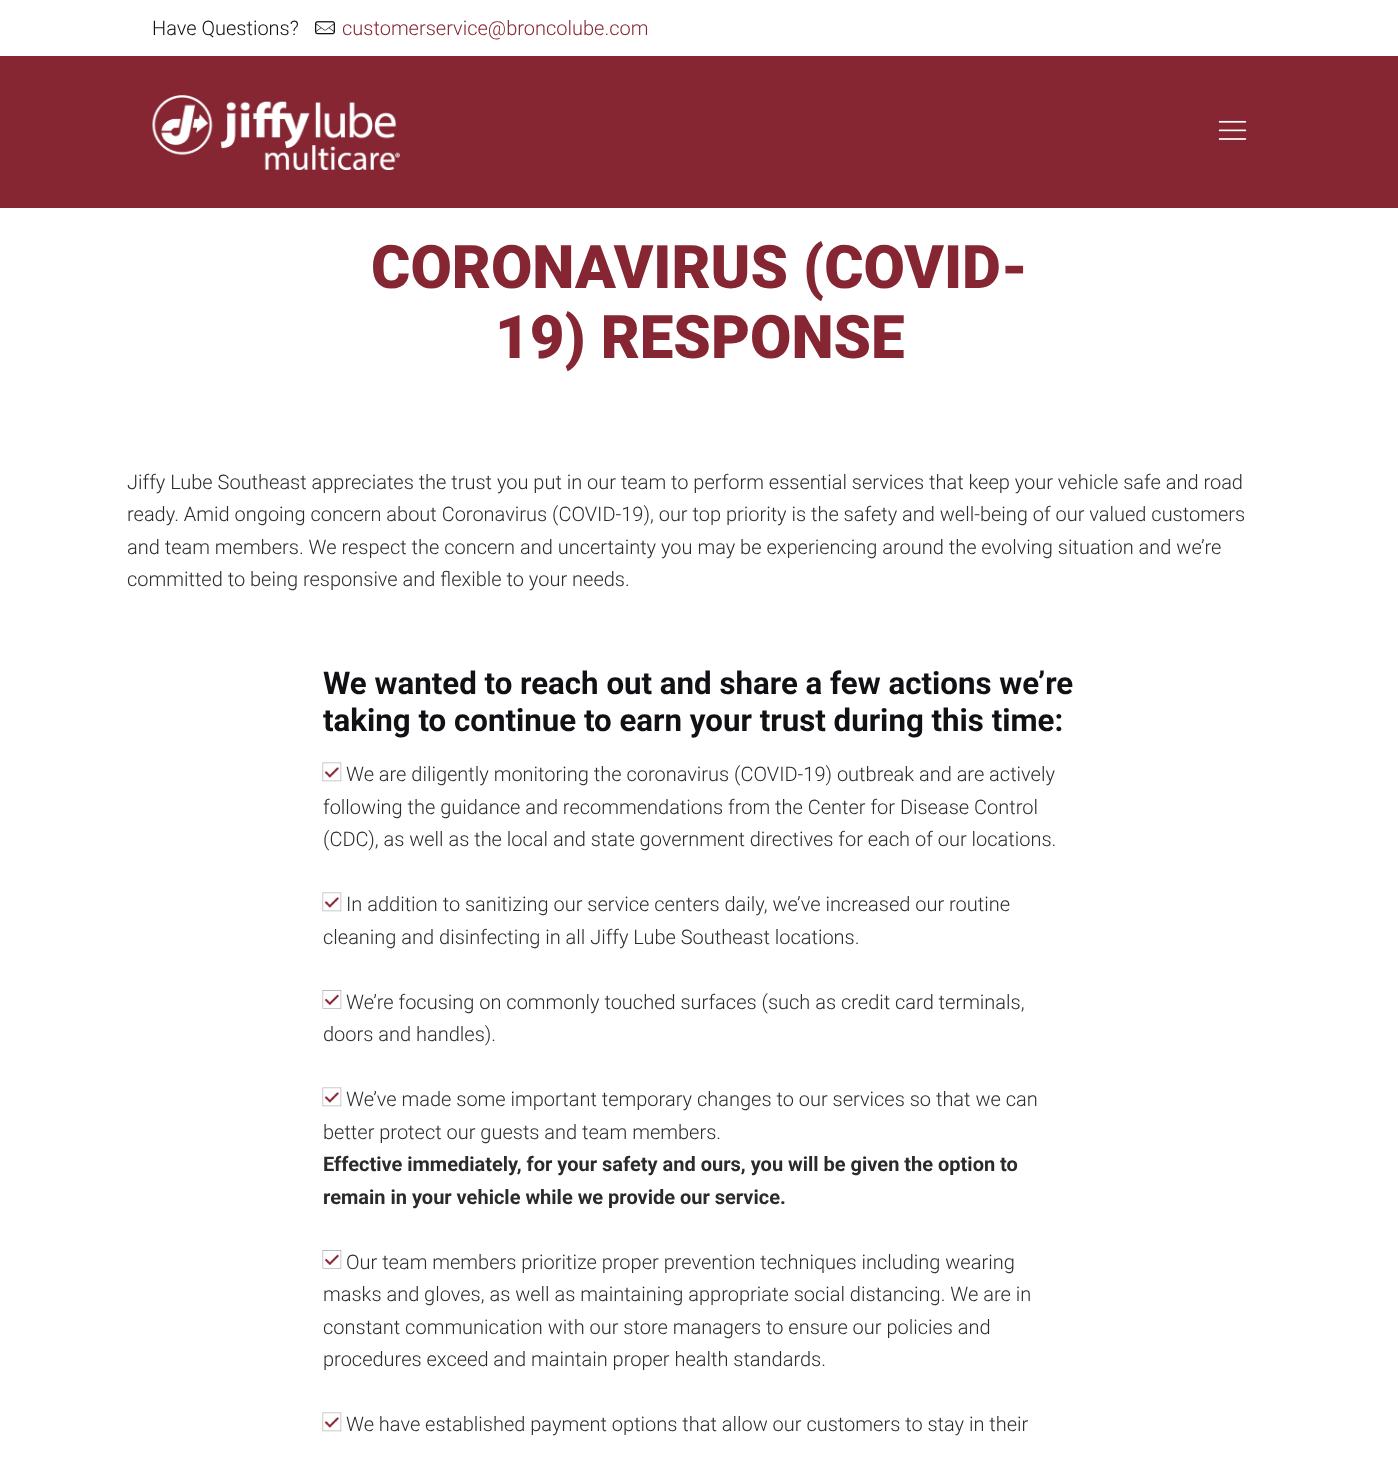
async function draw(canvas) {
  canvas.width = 1398
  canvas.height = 1457
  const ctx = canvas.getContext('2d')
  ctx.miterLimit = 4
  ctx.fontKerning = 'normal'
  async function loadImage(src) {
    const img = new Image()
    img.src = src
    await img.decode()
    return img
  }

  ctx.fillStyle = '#fff'
  ctx.fillRect(0, 0, 1398, 1457)
  ctx.font = '300 20px Roboto'
  ctx.fillStyle = '#101015'
  ctx.fillText('Have Questions?', 152, 35)
  ctx.drawImage(await loadImage('image0.png'), 315, 21, 20, 14)
  ctx.fillStyle = '#862633'
  ctx.fillText('customerservice@broncolube.com', 342, 35)
  ctx.fillRect(0, 56, 1398, 152)
  ctx.drawImage(await loadImage('image1.png'), 152, 95, 248, 75)
  ctx.drawImage(await loadImage('image2.png'), 1218, 120, 29, 20)
  ctx.font = '900 60px Roboto'
  ctx.fillText('CORONAVIRUS (COVID-', 371, 288)
  ctx.fillText('19) RESPONSE', 495, 358)
  ctx.font = '300 20px Roboto'
  ctx.fillStyle = '#2b2b2b'
  ctx.fillText('Jiffy Lube Southeast appreciates the trust you put in our team to perform essential services that keep your vehicle safe and road', 127, 489)
  ctx.fillText('ready. Amid ongoing concern about Coronavirus (COVID-19), our top priority is the safety and well-being of our valued customers', 127, 521)
  ctx.fillText('and team members. We respect the concern and uncertainty you may be experiencing around the evolving situation and we’re', 127, 554)
  ctx.fillText('committed to being responsive and flexible to your needs.', 127, 586)
  ctx.font = 'bold 31.25px Roboto'
  ctx.fillStyle = '#101015'
  ctx.fillText('We wanted to reach out and share a few actions we’re', 323, 694)
  ctx.fillText('taking to continue to earn your trust during this time:', 323, 731)
  ctx.drawImage(await loadImage('image3.png'), 322, 762, 20, 20)
  ctx.font = '300 20px Roboto'
  ctx.fillStyle = '#2b2b2b'
  ctx.fillText('We are diligently monitoring the coronavirus (COVID-19) outbreak and are actively', 346, 781)
  ctx.fillText('following the guidance and recommendations from the Center for Disease Control', 323, 814)
  ctx.fillText('(CDC), as well as the local and state government directives for each of our locations.', 323, 846)
  ctx.drawImage(await loadImage('image3.png'), 322, 892, 20, 20)
  ctx.fillText('In addition to sanitizing our service centers daily, we’ve increased our routine', 346, 911)
  ctx.fillText('cleaning and disinfecting in all Jiffy Lube Southeast locations.', 323, 944)
  ctx.drawImage(await loadImage('image4.png'), 322, 990, 20, 19)
  ctx.fillText('We’re focusing on commonly touched surfaces (such as credit card terminals,', 346, 1009)
  ctx.fillText('doors and handles).', 323, 1041)
  ctx.drawImage(await loadImage('image3.png'), 322, 1087, 20, 20)
  ctx.fillText('We’ve made some important temporary changes to our services so that we can', 346, 1106)
  ctx.fillText('better protect our guests and team members.', 323, 1139)
  ctx.font = 'bold 20px Roboto'
  ctx.fillText('Effective immediately, for your safety and ours, you will be given the option to', 323, 1171)
  ctx.fillText('remain in your vehicle while we provide our service.', 323, 1204)
  ctx.drawImage(await loadImage('image4.png'), 322, 1250, 20, 19)
  ctx.font = '300 20px Roboto'
  ctx.fillText('Our team members prioritize proper prevention techniques including wearing', 346, 1269)
  ctx.fillText('masks and gloves, as well as maintaining appropriate social distancing. We are in', 323, 1301)
  ctx.fillText('constant communication with our store managers to ensure our policies and', 323, 1334)
  ctx.fillText('procedures exceed and maintain proper health standards.', 323, 1366)
  ctx.drawImage(await loadImage('image3.png'), 322, 1412, 20, 20)
  ctx.fillText('We have established payment options that allow our customers to stay in their', 346, 1431)
}

draw(document.querySelector('canvas'))
